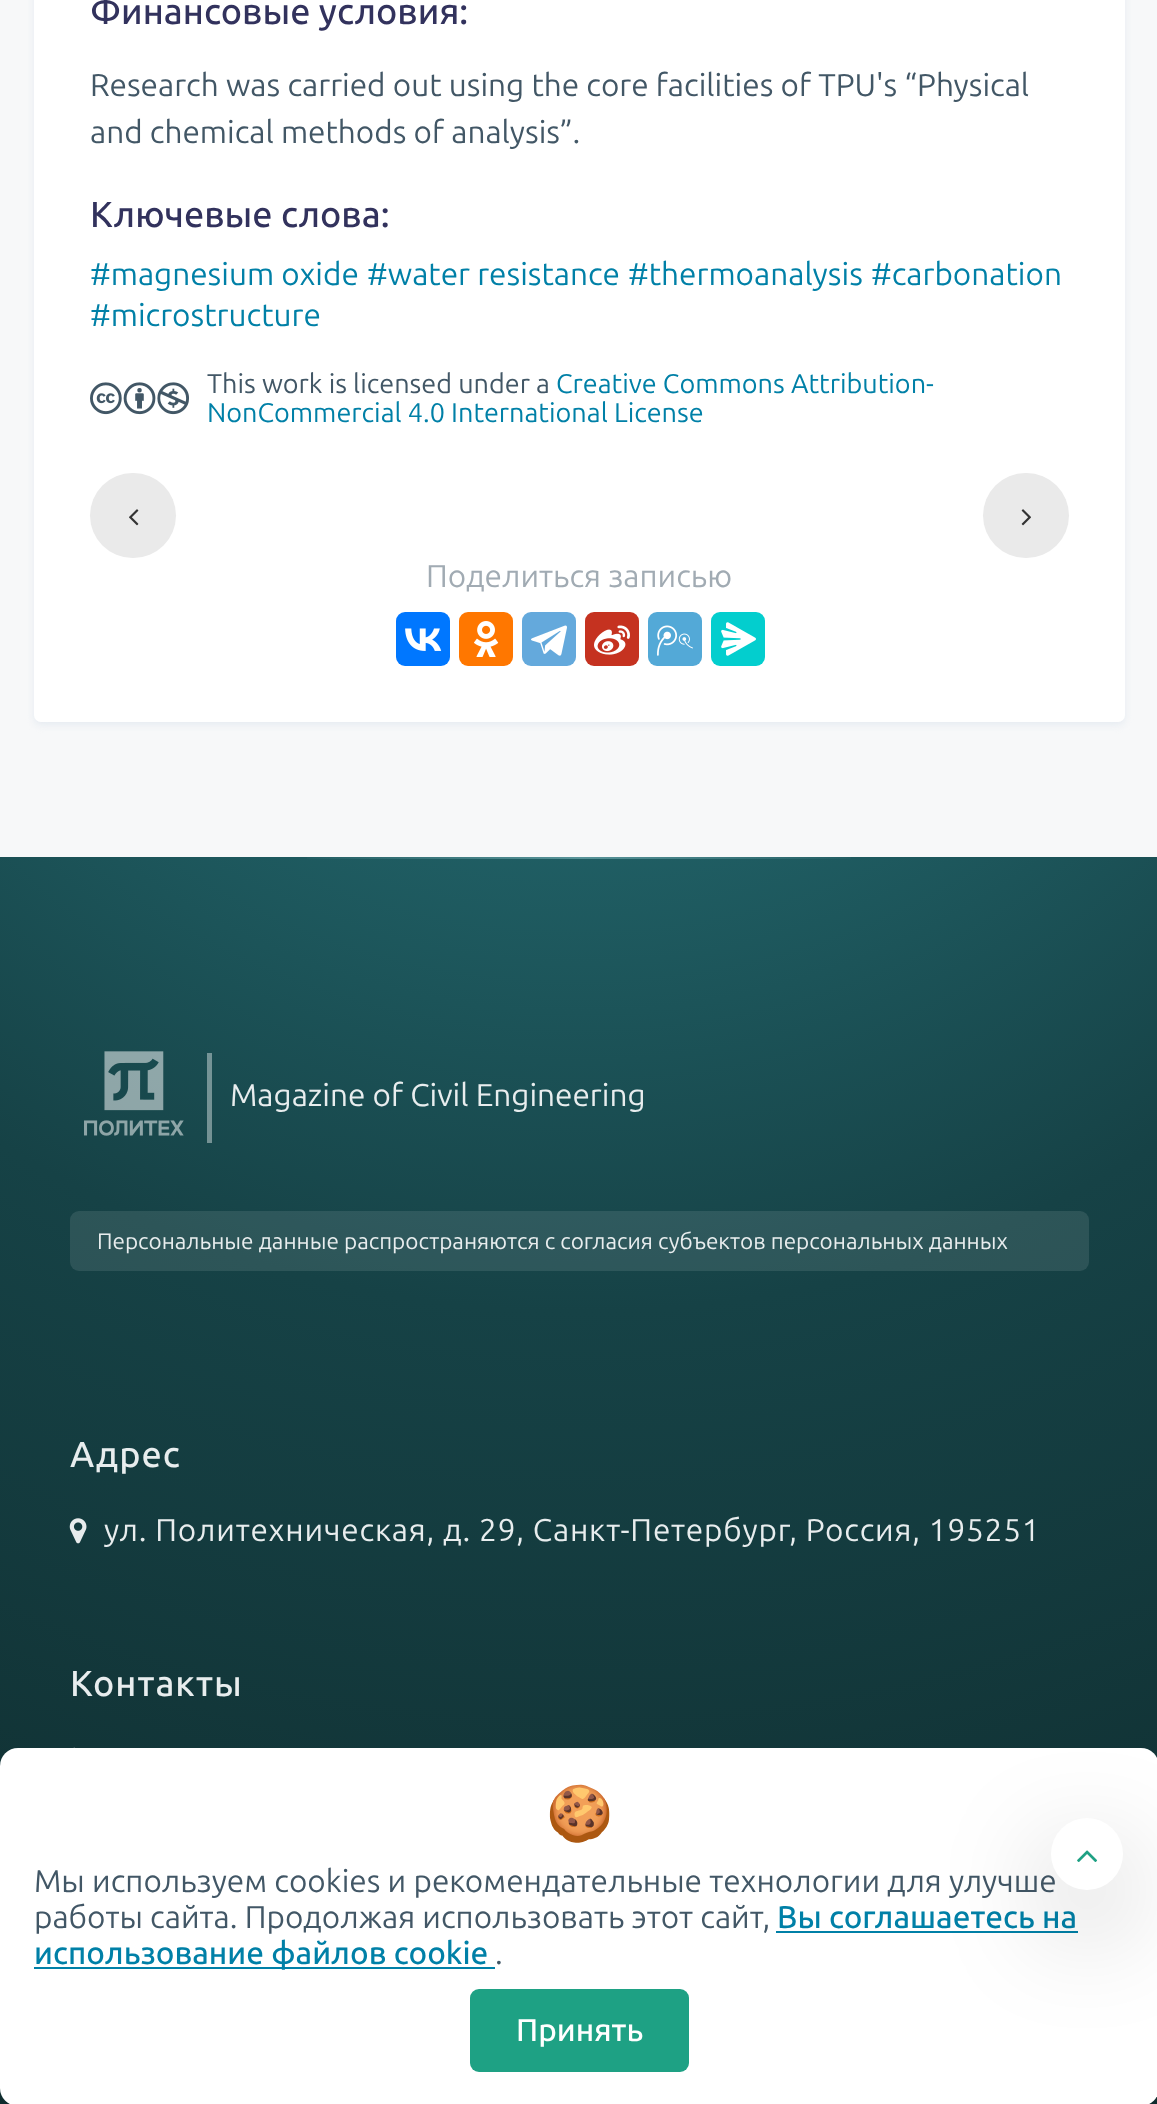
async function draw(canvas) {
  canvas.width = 1157
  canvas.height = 2104
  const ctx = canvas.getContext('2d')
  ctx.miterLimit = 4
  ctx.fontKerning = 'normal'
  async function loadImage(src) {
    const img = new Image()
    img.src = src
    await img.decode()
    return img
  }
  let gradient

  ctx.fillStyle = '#fff'
  ctx.fillRect(0, 0, 1157, 2104)
  ctx.fillStyle = '#f7f8f9'
  ctx.fillRect(0, 0, 1157, 857)
  ctx.fillStyle = '#e6ebf1'
  ctx.filter = 'blur(3.5px)'
  ctx.beginPath()
  ctx.roundRect(34, -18, 1091, 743, 7)
  ctx.fill()
  ctx.filter = 'none'
  ctx.fillStyle = '#fff'
  ctx.beginPath()
  ctx.roundRect(34, -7, 1091, 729, 7)
  ctx.fill()
  ctx.font = '500 36px Ubuntu'
  ctx.fillStyle = '#32325d'
  ctx.fillText('Финансовые условия:', 90, 24)
  ctx.font = '31.5px Ubuntu'
  ctx.fillStyle = '#425766'
  ctx.fillText('Research was carried out using the core facilities of TPU\'s “Physical', 90, 96)
  ctx.fillText('and chemical methods of analysis”.', 90, 143)
  ctx.font = '500 36px Ubuntu'
  ctx.fillStyle = '#32325d'
  ctx.fillText('Ключевые слова:', 90, 227)
  ctx.font = '31.5px Ubuntu'
  ctx.fillStyle = '#0080a7'
  ctx.fillText('#magnesium oxide', 90, 285)
  ctx.fillText('#water resistance', 367, 285)
  ctx.fillText('#thermoanalysis', 628, 285)
  ctx.fillText('#carbonation', 871, 285)
  ctx.fillText('#microstructure', 90, 326)
  ctx.drawImage(await loadImage('image0.png'), 90, 382, 99, 33)
  ctx.font = '27px Ubuntu'
  ctx.fillStyle = '#425766'
  ctx.fillText('This work is licensed under a', 207, 393)
  ctx.fillStyle = '#0080a7'
  ctx.fillText('Creative Commons Attribution-', 556, 393)
  ctx.fillText('NonCommercial 4.0 International License', 207, 422)
  ctx.fillStyle = '#eaeaea'
  ctx.beginPath()
  ctx.roundRect(90, 473, 86, 85, 42.5)
  ctx.fill()
  ctx.drawImage(await loadImage('image1.png'), 129, 509, 10, 17)
  ctx.beginPath()
  ctx.roundRect(983, 473, 86, 85, 42.5)
  ctx.fill()
  ctx.drawImage(await loadImage('image2.png'), 1021, 509, 10, 17)
  ctx.font = '31.5px Ubuntu'
  ctx.fillStyle = '#a1abb3'
  ctx.fillText('Поделиться записью', 426, 587)
  ctx.fillStyle = '#07f'
  ctx.beginPath()
  ctx.roundRect(396, 612, 54, 54, 9)
  ctx.fill()
  ctx.drawImage(await loadImage('image3.png'), 405, 628, 37, 23)
  ctx.fillStyle = '#f70'
  ctx.beginPath()
  ctx.roundRect(459, 612, 54, 54, 9)
  ctx.fill()
  ctx.drawImage(await loadImage('image4.png'), 474, 621, 25, 36)
  ctx.fillStyle = '#64a9dc'
  ctx.beginPath()
  ctx.roundRect(522, 612, 54, 54, 9)
  ctx.fill()
  ctx.drawImage(await loadImage('image5.png'), 531, 625, 36, 31)
  ctx.fillStyle = '#c53220'
  ctx.beginPath()
  ctx.roundRect(585, 612, 54, 54, 9)
  ctx.fill()
  ctx.drawImage(await loadImage('image6.png'), 594, 625, 36, 30)
  ctx.fillStyle = '#53a9d7'
  ctx.beginPath()
  ctx.roundRect(648, 612, 54, 54, 9)
  ctx.fill()
  ctx.drawImage(await loadImage('image7.png'), 657, 625, 36, 31)
  ctx.fillStyle = '#03cece'
  ctx.beginPath()
  ctx.roundRect(711, 612, 54, 54, 9)
  ctx.fill()
  ctx.drawImage(await loadImage('image8.png'), 721, 622, 35, 34)
  gradient = ctx.createRadialGradient(579, 233, 0, 579, 233, 1961)
  gradient.addColorStop(0.1, '#28777e')
  gradient.addColorStop(0.55, '#164246')
  gradient.addColorStop(1, '#0f2c2e')
  ctx.fillStyle = gradient
  ctx.fillRect(0, 857, 1157, 1247)
  gradient = ctx.createRadialGradient(579, 233, 0, 579, 233, 1961)
  gradient.addColorStop(0.1, '#7eadb2')
  gradient.addColorStop(0.55, '#738e90')
  gradient.addColorStop(1, '#6f8082')
  ctx.fillStyle = gradient
  ctx.fillRect(207, 1053, 5, 90)
  gradient = ctx.createLinearGradient(6.6, 796, 1152, 920)
  gradient.addColorStop(0.25, '#c4faff00')
  gradient.addColorStop(0.5, '#c4faff59')
  gradient.addColorStop(0.75, '#c4faff00')
  ctx.fillStyle = gradient
  ctx.fillRect(307, 857, 544, 2)
  ctx.drawImage(await loadImage('image9.png'), 84, 1051, 100, 85)
  ctx.fillStyle = '#e8edee'
  ctx.fillText('Magazine of Civil Engineering', 230, 1106)
  ctx.fillStyle = '#ffffff1a'
  ctx.beginPath()
  ctx.roundRect(70, 1211, 1019, 60, 9)
  ctx.fill()
  ctx.font = '22.5px Ubuntu'
  ctx.fillStyle = '#e8edee'
  ctx.fillText('Персональные данные распространяются с согласия субъектов персональных данных', 97, 1249)
  ctx.letterSpacing = '1px'
  ctx.font = '500 36px Ubuntu'
  ctx.fillText('Адрес', 70, 1467)
  ctx.drawImage(await loadImage('image10.png'), 69, 1518, 18, 26)
  ctx.letterSpacing = '0.8px'
  ctx.font = '31.5px Ubuntu'
  ctx.fillText('ул. Политехническая, д. 29, Санкт-Петербург, Россия, 195251', 104, 1541)
  ctx.letterSpacing = '1px'
  ctx.font = '500 36px Ubuntu'
  ctx.fillText('Контакты', 70, 1696)
  ctx.drawImage(await loadImage('image11.png'), 73, 1747, 2, 1)
  ctx.fillStyle = '#fff'
  ctx.beginPath()
  ctx.roundRect(0, 1748, 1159, 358, 18)
  ctx.fill()
  ctx.letterSpacing = '0px'
  ctx.font = '54px Noto Color Emoji'
  ctx.fillStyle = '#425766'
  ctx.fillText('🍪', 546, 1832)
  ctx.font = '31.5px Ubuntu'
  ctx.fillText('Мы используем cookies и рекомендательные технологии для улучше', 34, 1892)
  ctx.fillText('работы сайта. Продолжая использовать этот сайт,', 34, 1928)
  ctx.font = '500 31.5px Ubuntu'
  ctx.fillStyle = '#0080a7'
  ctx.fillText('Вы соглашаетесь на', 777, 1928)
  ctx.fillRect(776, 1931, 302, 2)
  ctx.fillRect(34, 1967, 461, 2)
  ctx.fillText('использование файлов cookie', 34, 1964)
  ctx.font = '31.5px Ubuntu'
  ctx.fillStyle = '#425766'
  ctx.fillText('.', 495, 1964)
  ctx.fillStyle = '#1ea184'
  ctx.beginPath()
  ctx.roundRect(470, 1989, 219, 83, 9)
  ctx.fill()
  ctx.font = '500 31.5px Ubuntu'
  ctx.fillStyle = '#fff'
  ctx.fillText('Принять', 516, 2041)
  ctx.fillStyle = '#00000047'
  ctx.filter = 'blur(54px)'
  ctx.beginPath()
  ctx.roundRect(1051, 1854, 72, 72, 36)
  ctx.fill()
  ctx.filter = 'none'
  ctx.fillStyle = '#fff'
  ctx.beginPath()
  ctx.arc(1087, 1854, 36, 0, 2 * Math.PI)
  ctx.fill()
  ctx.drawImage(await loadImage('image12.png'), 1077, 1850, 21, 12)
}

draw(document.querySelector('canvas'))
